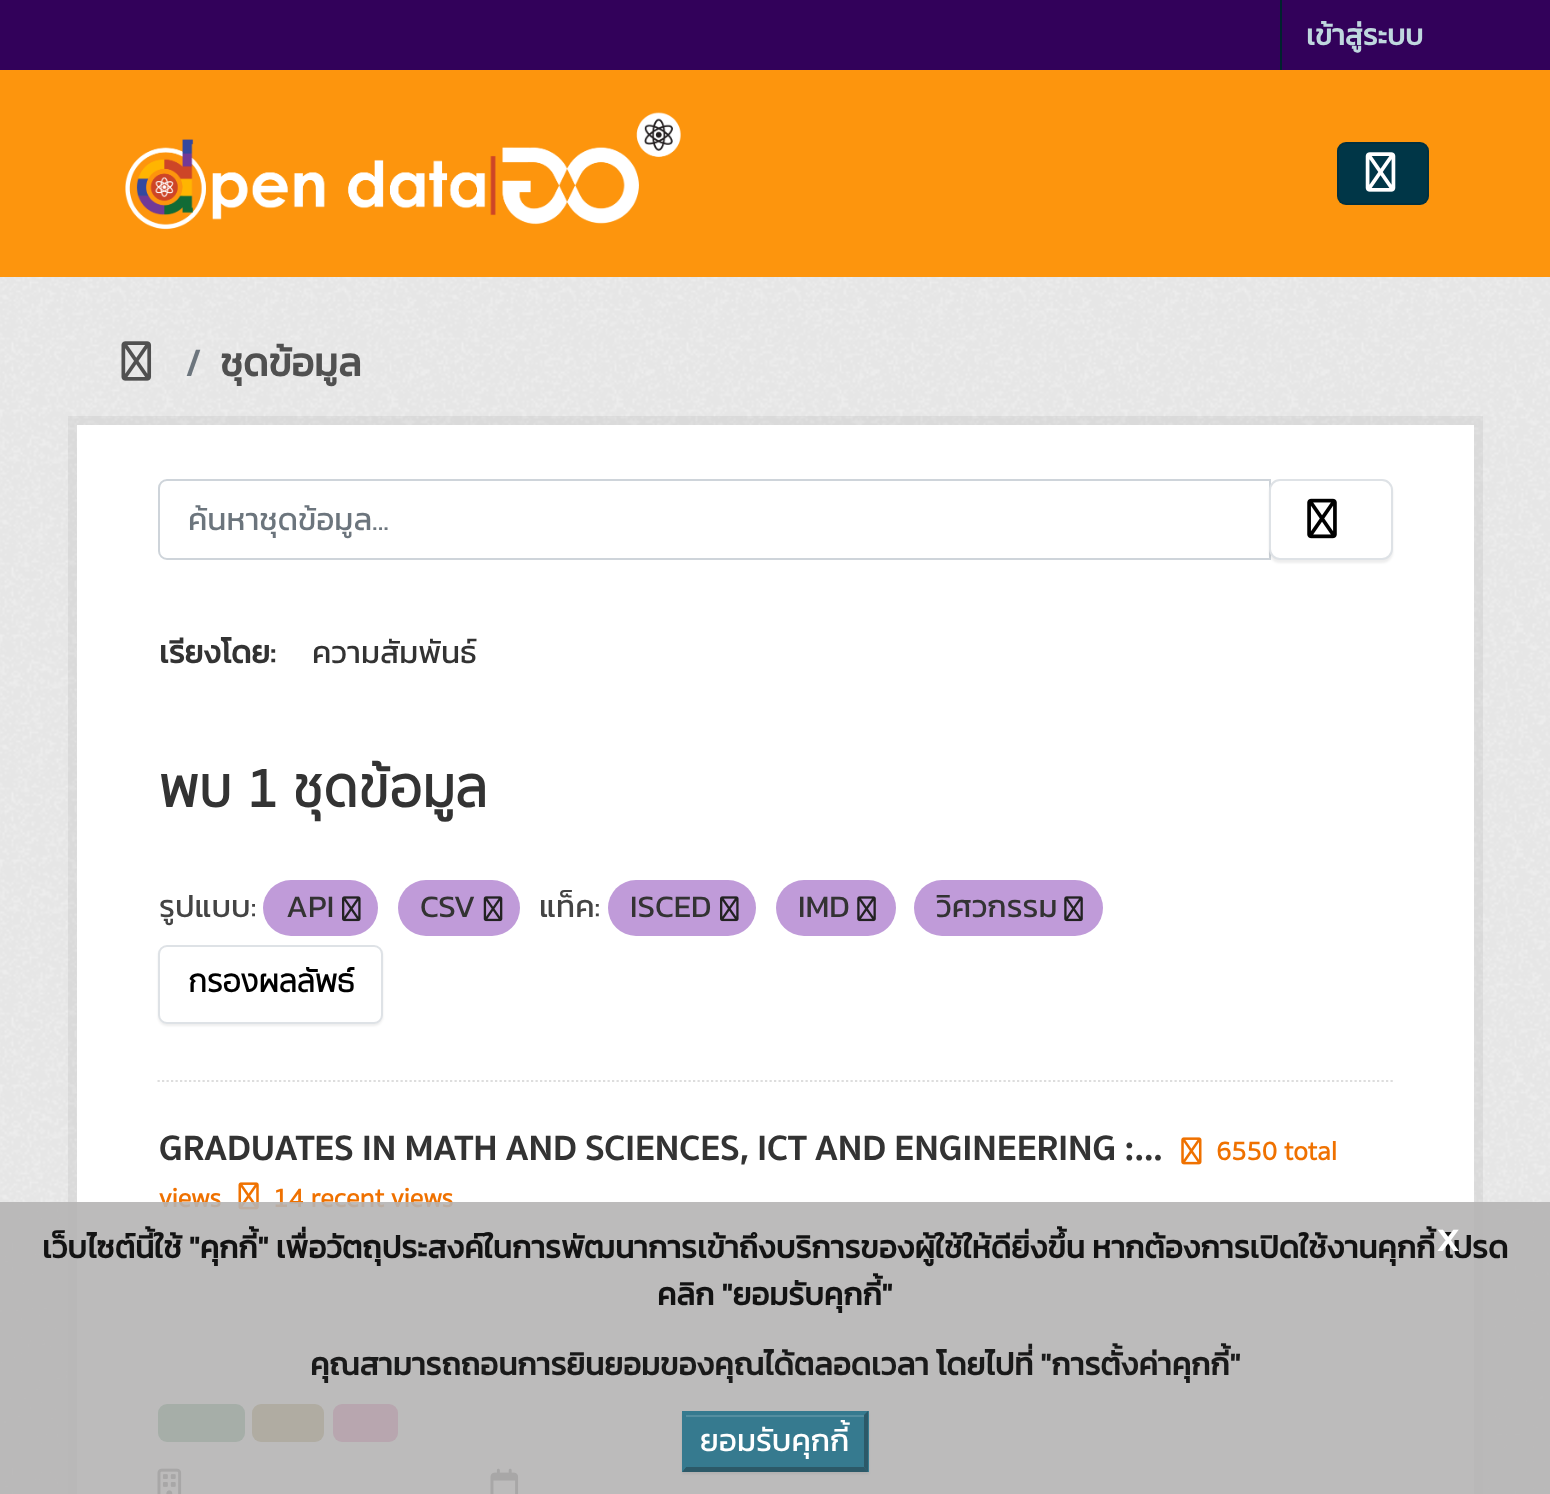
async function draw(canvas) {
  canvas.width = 1550
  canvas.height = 1494
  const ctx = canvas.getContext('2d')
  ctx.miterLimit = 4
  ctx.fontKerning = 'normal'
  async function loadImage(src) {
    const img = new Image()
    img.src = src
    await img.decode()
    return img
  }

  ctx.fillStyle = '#32015a'
  ctx.fillRect(0, 0, 1550, 1494)
  ctx.fillStyle = '#00232e'
  ctx.fillRect(1280, 0, 2, 70)
  ctx.font = 'bold 29.25px Kanit'
  ctx.fillStyle = '#bfd7de'
  ctx.fillText('เข้าสู่ระบบ', 1306, 45)
  ctx.fillStyle = '#fd950d'
  ctx.fillRect(0, 70, 1550, 207)
  ctx.drawImage(await loadImage('image0.png'), 125, 112, 556, 118)
  ctx.fillStyle = '#003647'
  ctx.beginPath()
  ctx.roundRect(1337, 142, 92, 63, 9)
  ctx.fill()
  ctx.beginPath()
  ctx.roundRect(1338, 143, 90, 61, 8)
  ctx.strokeStyle = '#0000001a'
  ctx.lineWidth = 2
  ctx.stroke()
  ctx.drawImage(await loadImage('image1.png'), 1365, 152, 31, 40)
  ctx.fillStyle = '#eee'
  ctx.fillRect(0, 277, 1550, 1217)
  ctx.drawImage(await loadImage('image2.png'), 0, 277, 1550, 1217)
  ctx.drawImage(await loadImage('image3.png'), 121, 341, 31, 40)
  ctx.font = '39.5px Kanit'
  ctx.fillStyle = '#6c757d'
  ctx.fillText('/', 185, 376)
  ctx.font = 'bold 39.5px Kanit'
  ctx.fillStyle = '#505050'
  ctx.fillText('ชุดข้อมูล', 220, 376)
  ctx.strokeStyle = '#0000000d'
  ctx.lineWidth = 9
  ctx.strokeRect(72.5, 420.5, 1406, 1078)
  ctx.fillStyle = '#fff'
  ctx.fillRect(77, 425, 1397, 1069)
  ctx.beginPath()
  ctx.moveTo(157.5, 1081)
  ctx.lineTo(1393, 1081)
  ctx.strokeStyle = '#ddd'
  ctx.lineWidth = 2.2
  ctx.setLineDash([2.25, 2.25])
  ctx.stroke()
  ctx.beginPath()
  ctx.roundRect(159, 480, 1111, 79, [8, 0, 0, 8])
  ctx.strokeStyle = '#ced4da'
  ctx.lineWidth = 2
  ctx.setLineDash([])
  ctx.stroke()
  ctx.save()
  ctx.beginPath()
  ctx.rect(187, 497, 1055, 48)
  ctx.clip()
  ctx.font = '31.5px Kanit'
  ctx.fillStyle = '#6c757d'
  ctx.fillText('ค้นหาชุดข้อมูล...', 188, 530)
  ctx.restore()
  ctx.fillStyle = '#00000012'
  ctx.filter = 'blur(1px)'
  ctx.beginPath()
  ctx.roundRect(1269, 482, 124, 81, 11)
  ctx.fill()
  ctx.filter = 'none'
  ctx.fillStyle = '#fff'
  ctx.beginPath()
  ctx.roundRect(1270, 480, 122, 79, 10)
  ctx.fill()
  ctx.strokeStyle = '#dee2e6'
  ctx.stroke()
  ctx.drawImage(await loadImage('image4.png'), 1307, 498, 30, 41)
  ctx.font = 'bold 31.5px Kanit'
  ctx.fillStyle = '#333'
  ctx.fillText('เรียงโดย:', 159, 663)
  ctx.font = '31.5px Kanit'
  ctx.fillText('ความสัมพันธ์', 312, 663)
  ctx.font = 'bold 56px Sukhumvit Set'
  ctx.fillText('พบ 1 ชุดข้อมูล', 159, 807)
  ctx.font = '31.5px Kanit'
  ctx.fillStyle = '#444'
  ctx.fillText('รูปแบบ:', 159, 917)
  ctx.fillStyle = '#c09bd9'
  ctx.beginPath()
  ctx.roundRect(263, 880, 115, 56, 28)
  ctx.fill()
  ctx.fillStyle = '#333'
  ctx.fillText('API', 286, 917)
  ctx.drawImage(await loadImage('image5.png'), 342, 896, 19, 26)
  ctx.fillStyle = '#c09bd9'
  ctx.beginPath()
  ctx.roundRect(398, 880, 122, 56, 28)
  ctx.fill()
  ctx.fillStyle = '#333'
  ctx.fillText('CSV', 420, 917)
  ctx.drawImage(await loadImage('image6.png'), 483, 896, 20, 26)
  ctx.fillStyle = '#444'
  ctx.fillText('แท็ค:', 539, 917)
  ctx.fillStyle = '#c09bd9'
  ctx.beginPath()
  ctx.roundRect(608, 880, 148, 56, 28)
  ctx.fill()
  ctx.fillStyle = '#333'
  ctx.fillText('ISCED', 630, 917)
  ctx.drawImage(await loadImage('image5.png'), 720, 896, 19, 26)
  ctx.fillStyle = '#c09bd9'
  ctx.beginPath()
  ctx.roundRect(776, 880, 120, 56, 28)
  ctx.fill()
  ctx.fillStyle = '#333'
  ctx.fillText('IMD', 798, 917)
  ctx.drawImage(await loadImage('image7.png'), 857, 896, 19, 26)
  ctx.fillStyle = '#c09bd9'
  ctx.beginPath()
  ctx.roundRect(914, 880, 189, 56, 28)
  ctx.fill()
  ctx.fillStyle = '#333'
  ctx.fillText('วิศวกรรม', 936, 917)
  ctx.drawImage(await loadImage('image7.png'), 1064, 896, 19, 26)
  ctx.fillStyle = '#00000012'
  ctx.filter = 'blur(1px)'
  ctx.beginPath()
  ctx.roundRect(158, 947, 225, 79, 9)
  ctx.fill()
  ctx.filter = 'none'
  ctx.fillStyle = '#fff'
  ctx.beginPath()
  ctx.roundRect(159, 946, 223, 77, 8)
  ctx.fill()
  ctx.stroke()
  ctx.font = 'bold 31.5px Sukhumvit Set'
  ctx.fillStyle = '#000'
  ctx.fillText('กรองผลลัพธ์', 188, 992)
  ctx.font = 'bold 36px "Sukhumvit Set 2"'
  ctx.fillStyle = '#333'
  ctx.fillText('GRADUATES IN MATH AND SCIENCES, ICT AND ENGINEERING :...', 159, 1160)
  ctx.drawImage(await loadImage('image8.png'), 1181, 1137, 21, 28)
  ctx.font = 'bold 27px Sukhumvit Set'
  ctx.fillStyle = '#ef7100'
  ctx.fillText('6550 total', 1216, 1160)
  ctx.fillText('views', 159, 1207)
  ctx.drawImage(await loadImage('image9.png'), 238, 1182, 21, 28)
  ctx.fillText('14 recent views', 273, 1207)
  ctx.fillStyle = '#207e42'
  ctx.beginPath()
  ctx.roundRect(158, 1404, 87, 38, 9)
  ctx.fill()
  ctx.fillStyle = '#856a00'
  ctx.beginPath()
  ctx.roundRect(252, 1404, 72, 38, 9)
  ctx.fill()
  ctx.fillStyle = '#d22d81'
  ctx.beginPath()
  ctx.roundRect(333, 1404, 65, 38, 9)
  ctx.fill()
  ctx.drawImage(await loadImage('image10.png'), 157, 1468, 25, 26)
  ctx.drawImage(await loadImage('image11.png'), 490, 1468, 29, 26)
  ctx.fillStyle = '#b5b4b4e6'
  ctx.fillRect(0, 1202, 1550, 292)
  ctx.font = 'bold 31.5px Kanit'
  ctx.fillStyle = '#131313'
  ctx.fillText('เว็บไซต์นี้ใช้ "คุกกี้" เพื่อวัตถุประสงค์ในการพัฒนาการเข้าถึงบริการของผู้ใช้ให้ดียิ่งขึ้น หากต้องการเปิดใช้งานคุกกี้ โปรด', 42, 1258)
  ctx.fillText('คลิก "ยอมรับคุกกี้"', 657, 1305)
  ctx.font = '45px Kanit'
  ctx.fillStyle = '#fff'
  ctx.fillText('x', 1436, 1251)
  ctx.font = 'bold 31.5px Kanit'
  ctx.fillStyle = '#1a1a1a'
  ctx.fillText('คุณสามารถถอนการยินยอมของคุณได้ตลอดเวลา โดยไปที่ "การตั้งค่าคุกกี้"', 310, 1375)
  ctx.fillStyle = '#1a1a1a12'
  ctx.filter = 'blur(1px)'
  ctx.beginPath()
  ctx.rect(682, 1413, 187, 61)
  ctx.fill()
  ctx.filter = 'none'
  ctx.fillStyle = '#367a8f'
  ctx.fillRect(682, 1411, 187, 61)
  ctx.fillStyle = '#548ea0'
  ctx.fillRect(686, 1415, 178, 2)
  ctx.fillStyle = '#2c5968'
  ctx.beginPath()
  ctx.moveTo(868, 1411)
  ctx.lineTo(868, 1472)
  ctx.lineTo(864, 1467)
  ctx.lineTo(864, 1415)
  ctx.closePath()
  ctx.fill()
  ctx.beginPath()
  ctx.moveTo(868, 1472)
  ctx.lineTo(682, 1472)
  ctx.lineTo(686, 1467)
  ctx.lineTo(864, 1467)
  ctx.closePath()
  ctx.fill()
  ctx.fillStyle = '#367a8f'
  ctx.beginPath()
  ctx.moveTo(682, 1472)
  ctx.lineTo(682, 1411)
  ctx.lineTo(686, 1415)
  ctx.lineTo(686, 1467)
  ctx.closePath()
  ctx.fill()
  ctx.font = '31.5px Kanit'
  ctx.fillStyle = '#fff'
  ctx.fillText('ยอมรับคุกกี้', 700, 1451)
}

draw(document.querySelector('canvas'))
